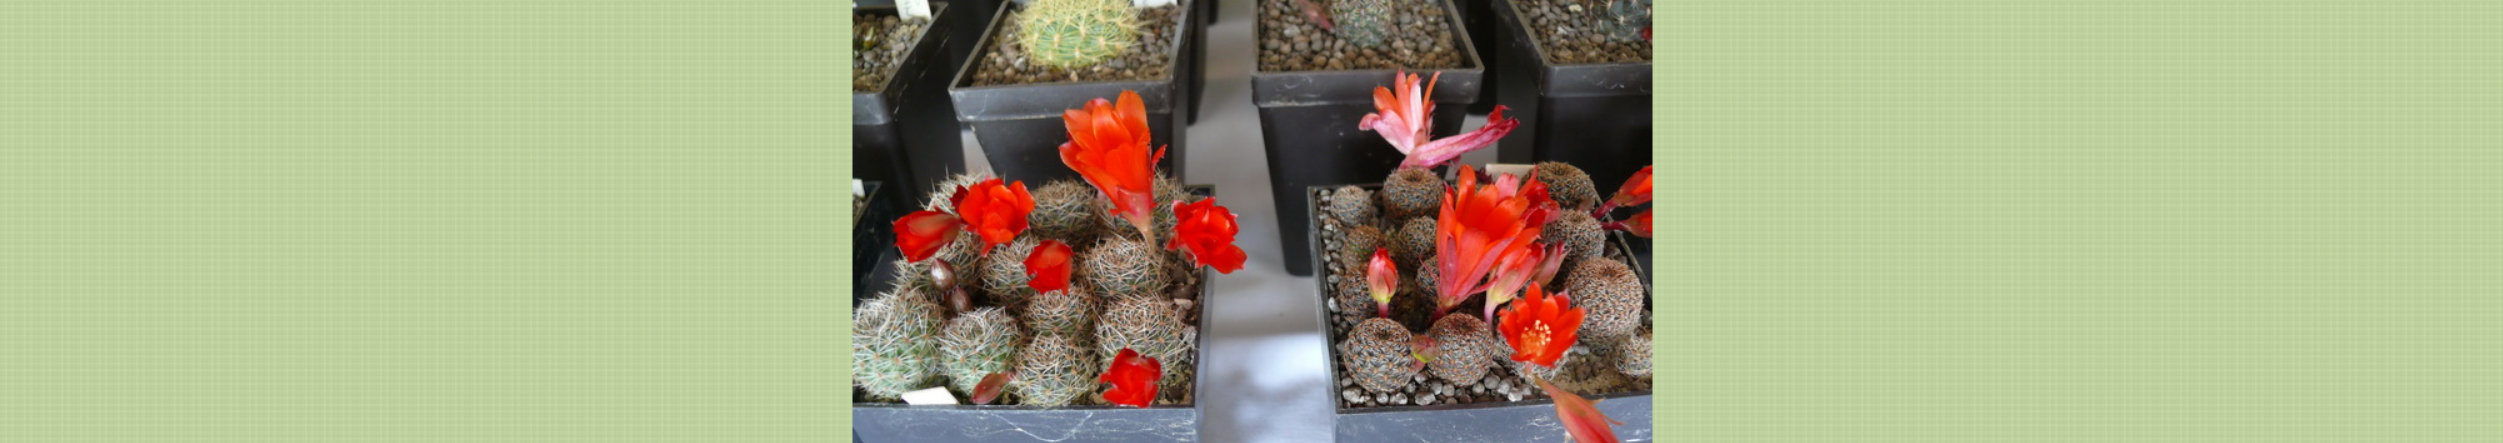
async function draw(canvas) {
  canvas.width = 2503
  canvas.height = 443
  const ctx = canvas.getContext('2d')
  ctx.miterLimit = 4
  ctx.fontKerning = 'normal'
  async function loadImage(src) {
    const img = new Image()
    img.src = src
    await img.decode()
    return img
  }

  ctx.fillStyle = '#c0d29e'
  ctx.fillRect(0, 0, 2503, 443)
  ctx.drawImage(await loadImage('image0.png'), 0, 1, 2503, 442)
  ctx.drawImage(await loadImage('image1.png'), 852, 0, 801, 443)
}

draw(document.querySelector('canvas'))
